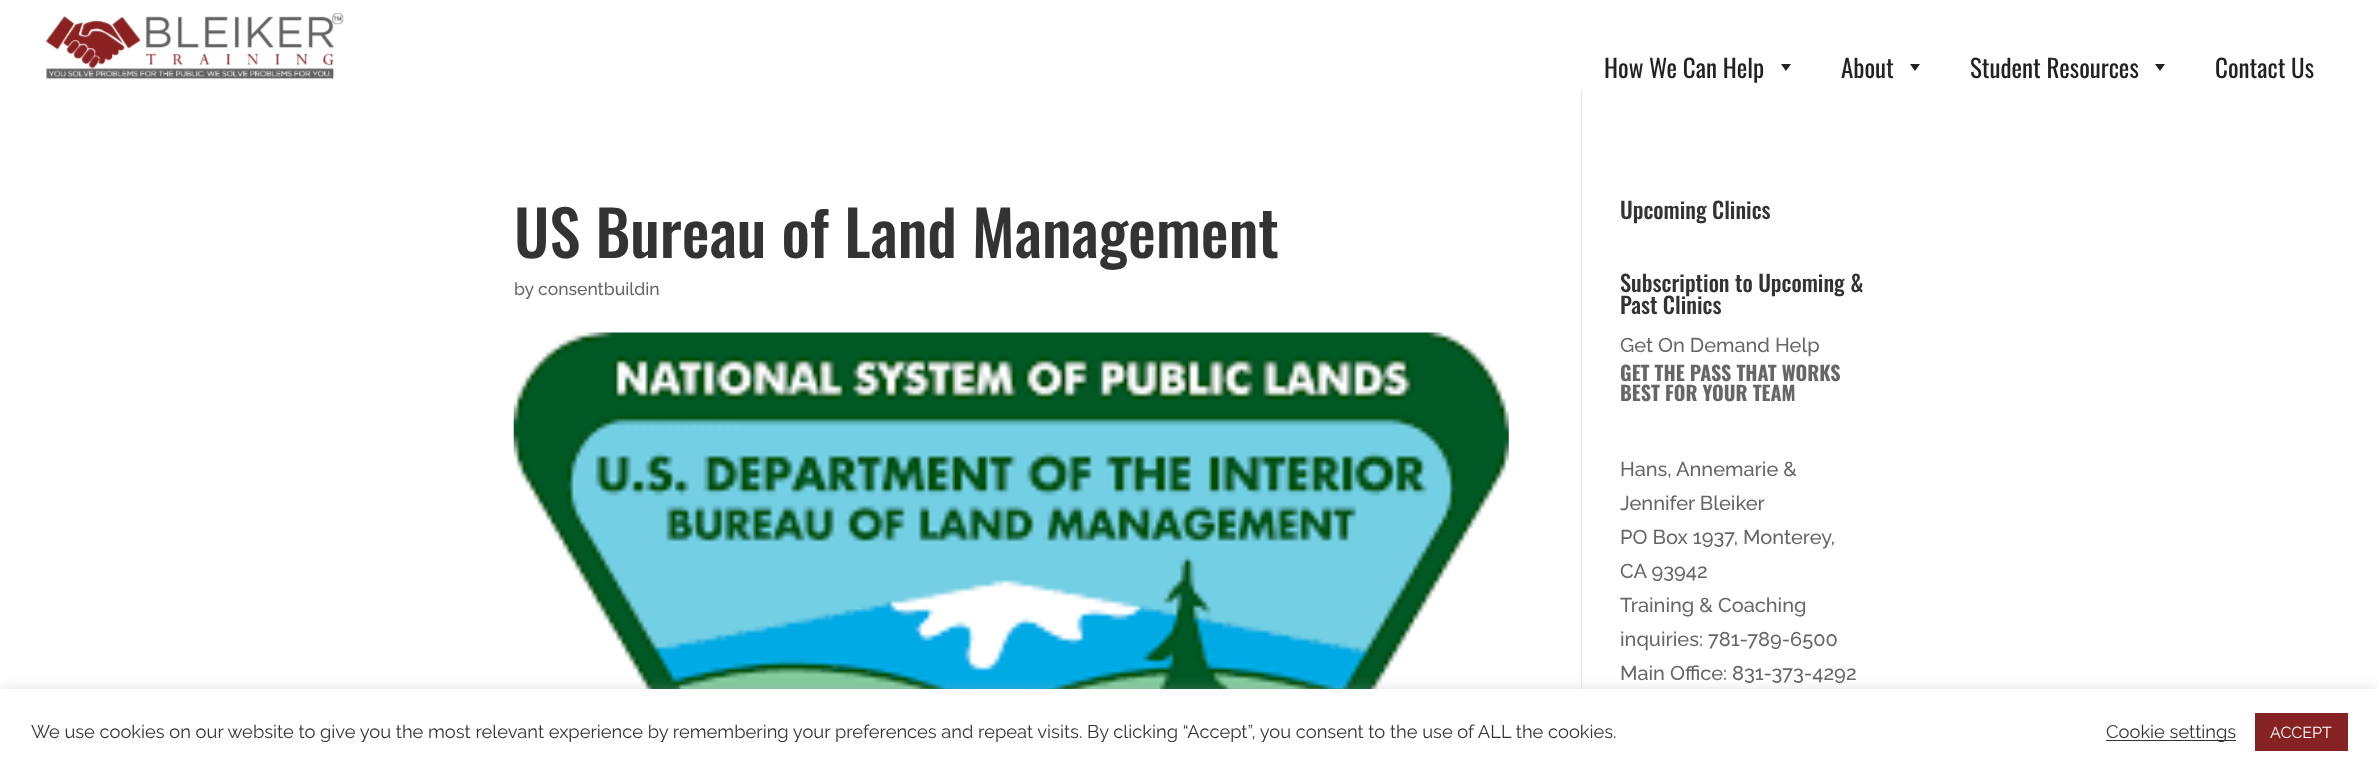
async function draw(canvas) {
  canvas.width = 2378
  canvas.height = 775
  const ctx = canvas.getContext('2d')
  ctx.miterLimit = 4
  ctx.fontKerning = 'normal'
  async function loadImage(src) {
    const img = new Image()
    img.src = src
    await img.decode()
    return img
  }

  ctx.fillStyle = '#fff'
  ctx.fillRect(0, 0, 2378, 775)
  ctx.drawImage(await loadImage('image0.png'), 46, 13, 298, 67)
  ctx.font = '25px Oswald'
  ctx.fillStyle = '#222'
  ctx.fillText('How We Can Help', 1604, 78)
  ctx.beginPath()
  ctx.moveTo(1791, 64)
  ctx.lineTo(1786, 71)
  ctx.lineTo(1781, 64)
  ctx.closePath()
  ctx.fill()
  ctx.fillText('About', 1841, 78)
  ctx.beginPath()
  ctx.moveTo(1920, 64)
  ctx.lineTo(1915, 71)
  ctx.lineTo(1910, 64)
  ctx.closePath()
  ctx.fill()
  ctx.fillText('Student Resources', 1970, 78)
  ctx.beginPath()
  ctx.moveTo(2165, 64)
  ctx.lineTo(2160, 71)
  ctx.lineTo(2155, 64)
  ctx.closePath()
  ctx.fill()
  ctx.fillText('Contact Us', 2215, 78)
  ctx.fillStyle = '#e2e2e2'
  ctx.fillRect(1581, 91, 1, 598)
  ctx.font = '500 62.5px Oswald'
  ctx.fillStyle = '#333'
  ctx.fillText('US Bureau of Land Management', 514, 258)
  ctx.font = '500 17.5px Raleway'
  ctx.fillStyle = '#666'
  ctx.fillText('by consentbuildin', 514, 295)
  ctx.drawImage(await loadImage('image1.png'), 513, 332, 996, 357)
  ctx.font = '500 22.5px Oswald'
  ctx.fillStyle = '#333'
  ctx.fillText('Upcoming Clinics', 1620, 219)
  ctx.fillText('Subscription to Upcoming &', 1620, 292)
  ctx.fillText('Past Clinics', 1620, 314)
  ctx.font = '500 20px Raleway'
  ctx.fillStyle = '#666'
  ctx.fillText('Get On Demand Help', 1620, 352)
  ctx.font = 'bold 20px Oswald'
  ctx.fillText('GET THE PASS THAT WORKS', 1620, 381)
  ctx.fillText('BEST FOR YOUR TEAM', 1620, 401)
  ctx.font = '500 20px Raleway'
  ctx.fillText('Hans, Annemarie &', 1620, 476)
  ctx.fillText('Jennifer Bleiker', 1620, 510)
  ctx.fillText('PO Box 1937, Monterey,', 1620, 544)
  ctx.fillText('CA 93942', 1620, 578)
  ctx.fillText('Training & Coaching', 1620, 612)
  ctx.fillText('inquiries: 781-789-6500', 1620, 646)
  ctx.fillText('Main Office: 831-373-4292', 1620, 680)
  ctx.fillStyle = '#acabab4d'
  ctx.filter = 'blur(6px)'
  ctx.beginPath()
  ctx.rect(0, 688, 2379, 86)
  ctx.fill()
  ctx.filter = 'none'
  ctx.fillStyle = '#fff'
  ctx.fillRect(0, 689, 2378, 86)
  ctx.font = '18.33px Raleway'
  ctx.fillStyle = '#333'
  ctx.fillText('We use cookies on our website to give you the most relevant experience by remembering your preferences and repeat visits. By clicking “Accept”, you consent to the use of ALL the cookies.', 31, 738)
  ctx.fillRect(2106, 740, 130, 1)
  ctx.fillText('Cookie settings', 2106, 738)
  ctx.fillStyle = '#862221'
  ctx.fillRect(2255, 713, 93, 38)
  ctx.font = '16px Raleway'
  ctx.fillStyle = '#fff'
  ctx.fillText('ACCEPT', 2270, 738)
}

draw(document.querySelector('canvas'))
